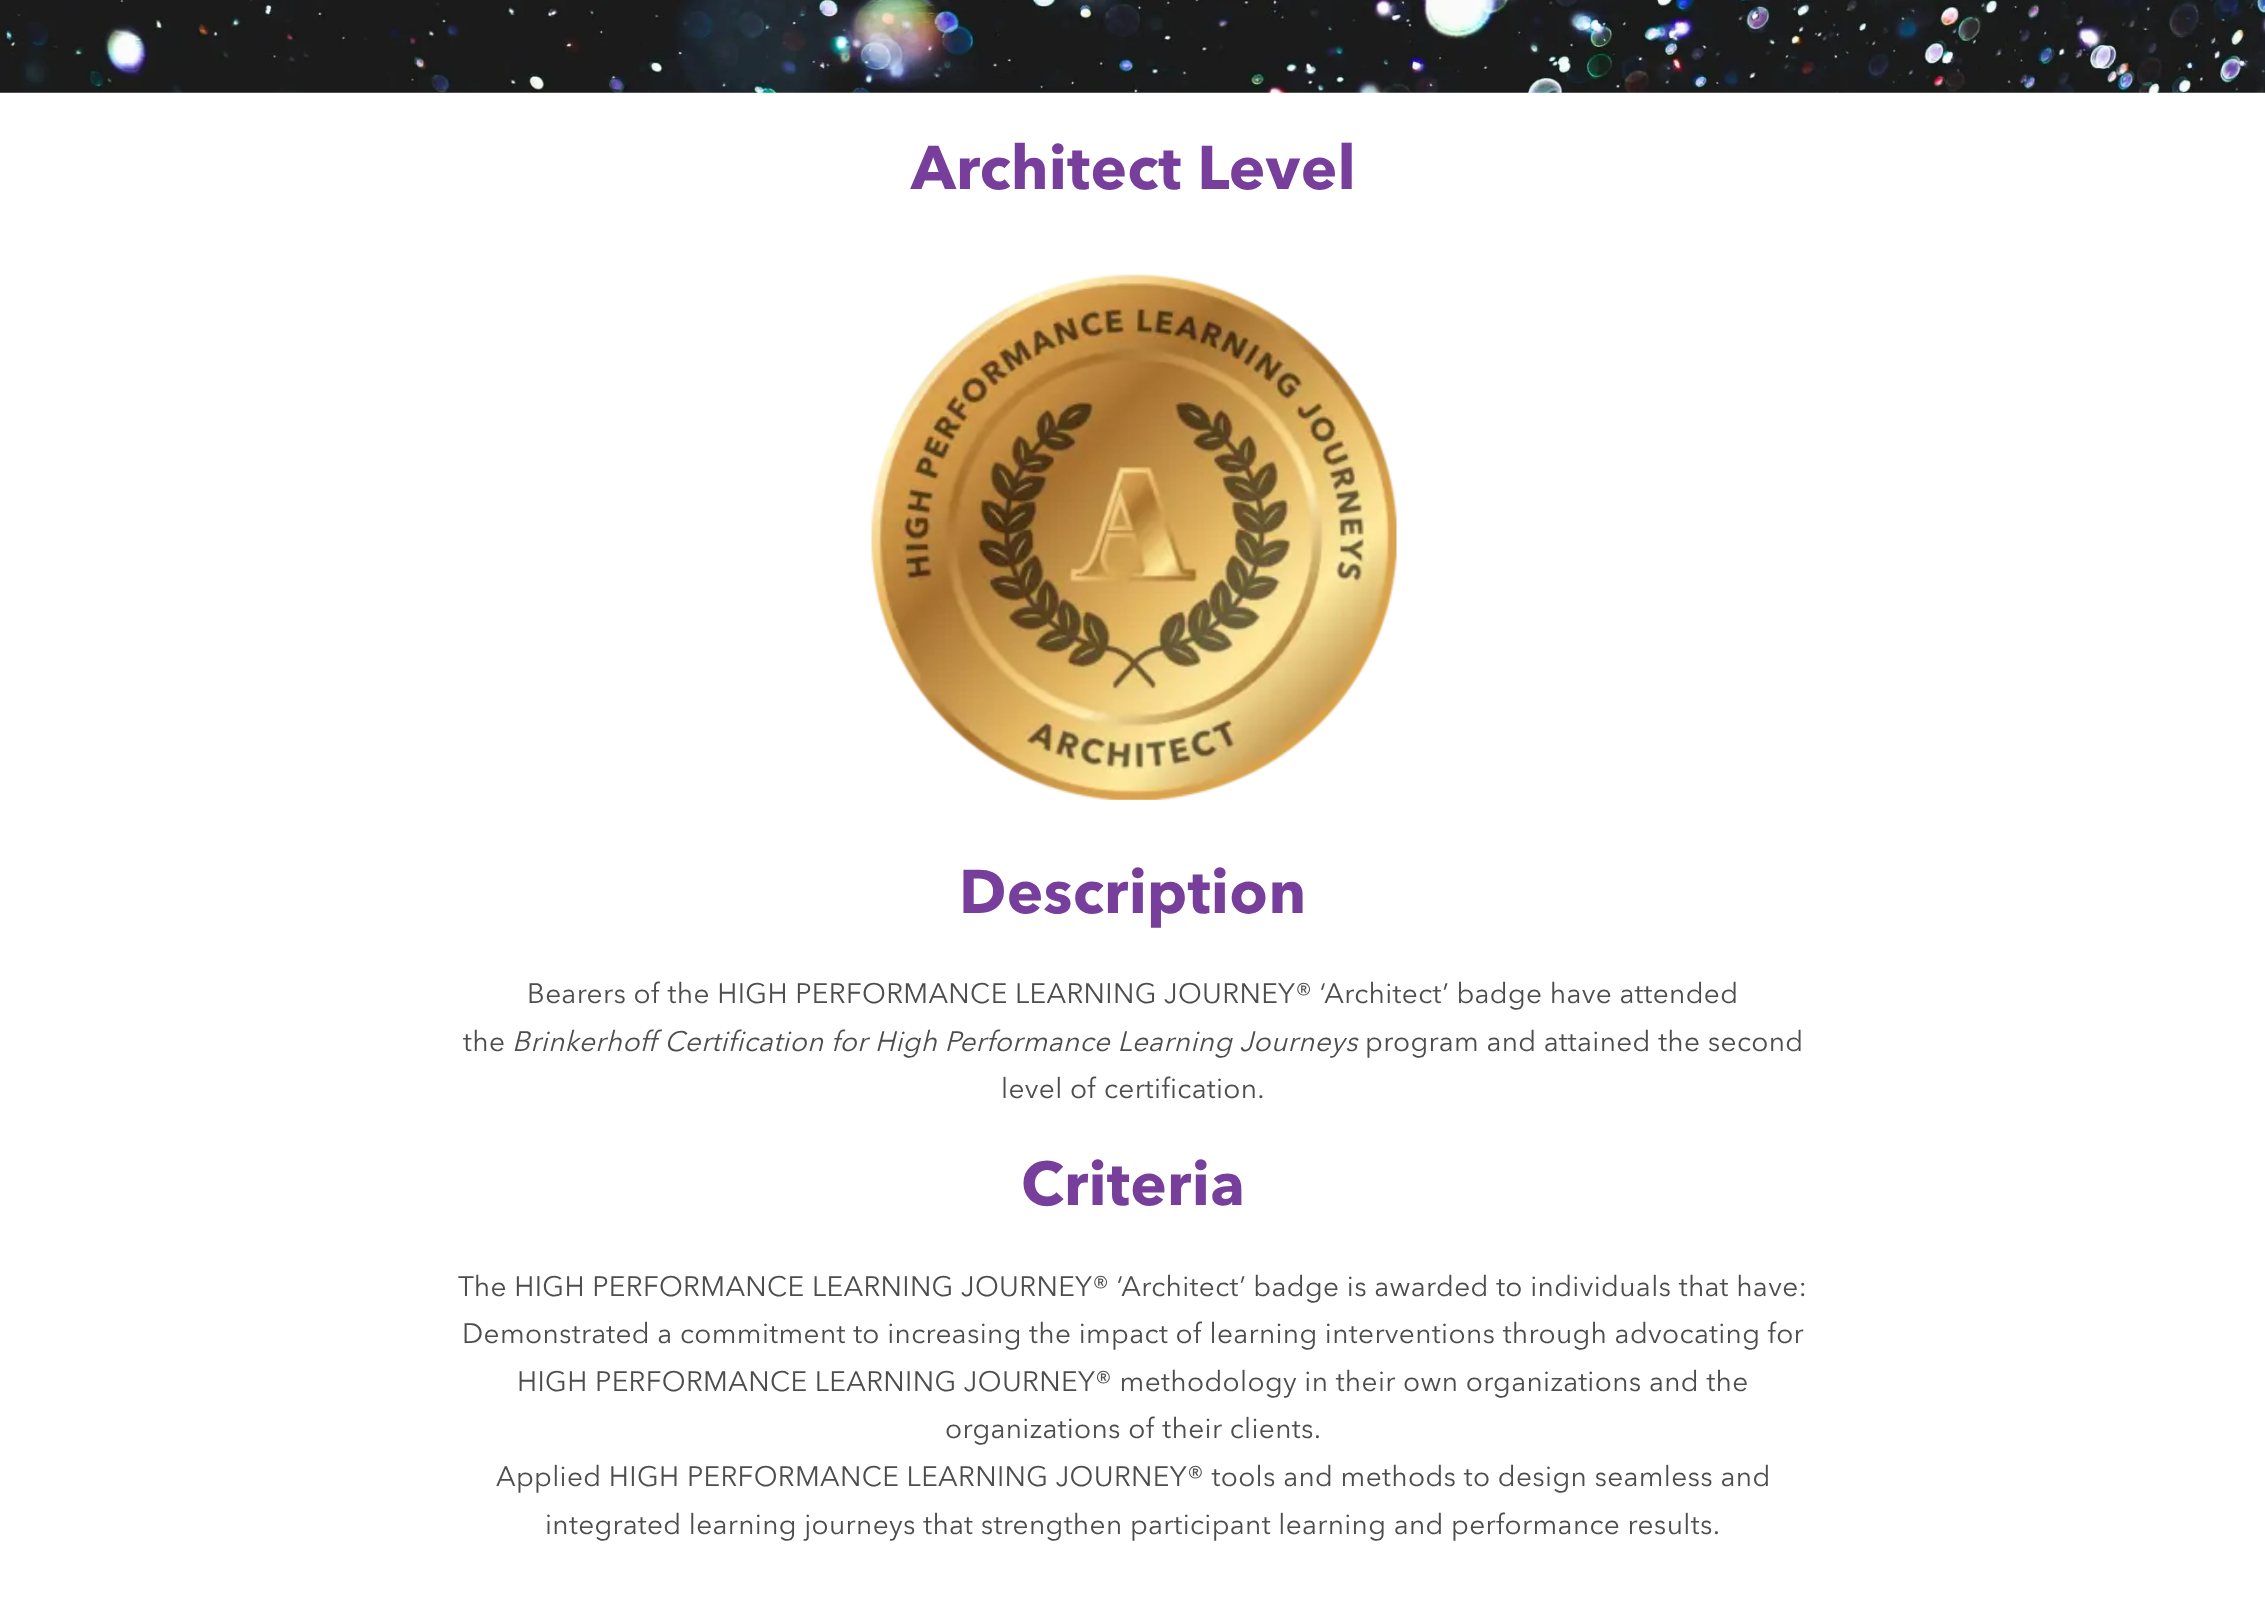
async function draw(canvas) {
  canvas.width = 2265
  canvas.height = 1624
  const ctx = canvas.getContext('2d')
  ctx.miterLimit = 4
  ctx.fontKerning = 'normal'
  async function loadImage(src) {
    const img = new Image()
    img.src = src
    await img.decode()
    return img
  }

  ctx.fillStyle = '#fff'
  ctx.fillRect(0, 0, 2265, 1624)
  ctx.drawImage(await loadImage('image0.png'), 0, 0, 2265, 93)
  ctx.letterSpacing = '0.35px'
  ctx.font = 'bold 61.25px Avenir Next'
  ctx.fillStyle = '#773f9b'
  ctx.fillText('Architect Level', 911, 189)
  ctx.drawImage(await loadImage('image1.png'), 871, 274, 526, 526)
  ctx.fillText('Description', 959, 913)
  ctx.font = '28px Avenir Next'
  ctx.fillStyle = '#4d4d4d'
  ctx.fillText('Bearers of the HIGH PERFORMANCE LEARNING JOURNEY® ‘Architect’ badge have attended', 527, 1003)
  ctx.fillText('the', 463, 1051)
  ctx.font = 'italic 28px Avenir Next'
  ctx.fillText('Brinkerhoff Certification for High Performance Learning Journeys', 512, 1051)
  ctx.font = '28px Avenir Next'
  ctx.fillText('program and attained the second', 1365, 1051)
  ctx.fillText('level of certification.', 1001, 1098)
  ctx.font = 'bold 61.25px Avenir Next'
  ctx.fillStyle = '#773f9b'
  ctx.fillText('Criteria', 1021, 1205)
  ctx.font = '28px Avenir Next'
  ctx.fillStyle = '#4d4d4d'
  ctx.fillText('The HIGH PERFORMANCE LEARNING JOURNEY® ‘Architect’ badge is awarded to individuals that have:', 458, 1296)
  ctx.fillText('Demonstrated a commitment to increasing the impact of learning interventions through advocating for', 462, 1343)
  ctx.fillText('HIGH PERFORMANCE LEARNING JOURNEY® methodology in their own organizations and the', 517, 1391)
  ctx.fillText('organizations of their clients.', 945, 1438)
  ctx.fillText('Applied HIGH PERFORMANCE LEARNING JOURNEY® tools and methods to design seamless and', 496, 1486)
  ctx.fillText('integrated learning journeys that strengthen participant learning and performance results.', 545, 1534)
}

draw(document.querySelector('canvas'))
